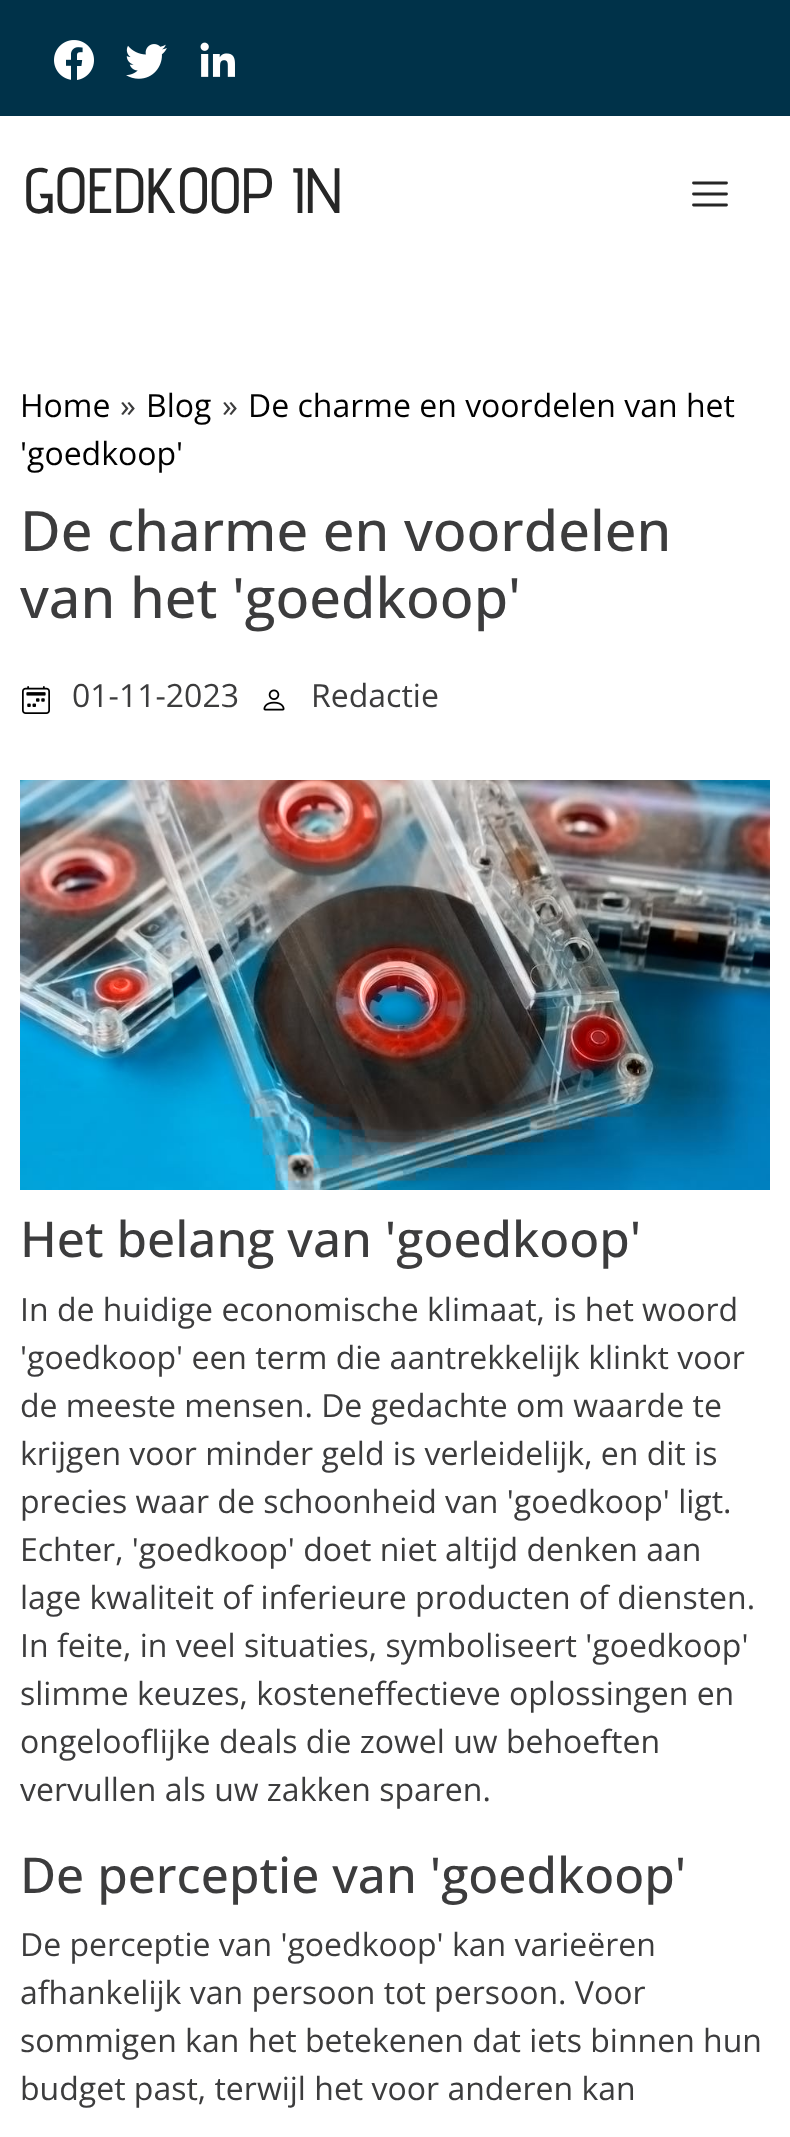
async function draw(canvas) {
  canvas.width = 790
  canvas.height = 2137
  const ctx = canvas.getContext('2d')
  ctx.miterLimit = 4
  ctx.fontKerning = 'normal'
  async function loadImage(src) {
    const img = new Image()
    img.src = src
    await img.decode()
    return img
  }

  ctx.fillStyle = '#fff'
  ctx.fillRect(0, 0, 790, 2137)
  ctx.fillStyle = '#003249'
  ctx.fillRect(0, 0, 790, 116)
  ctx.drawImage(await loadImage('image0.png'), 54, 40, 40, 40)
  ctx.drawImage(await loadImage('image1.png'), 126, 44, 41, 35)
  ctx.drawImage(await loadImage('image2.png'), 200, 42, 35, 35)
  ctx.font = '500 64px Advent Pro'
  ctx.fillStyle = '#262626'
  ctx.fillText('GOEDKOOP IN', 24, 213)
  ctx.beginPath()
  ctx.moveTo(693.5, 194)
  ctx.lineTo(726.5, 194)
  ctx.moveTo(693.5, 183)
  ctx.lineTo(726.5, 183)
  ctx.moveTo(693.5, 205)
  ctx.lineTo(726.5, 205)
  ctx.strokeStyle = '#262626'
  ctx.lineWidth = 2.8
  ctx.lineCap = 'round'
  ctx.lineJoin = 'round'
  ctx.stroke()
  ctx.font = '32px Open Sans'
  ctx.fillStyle = '#000'
  ctx.fillText('Home', 20, 417)
  ctx.fillStyle = '#3c3c3d'
  ctx.fillText('»', 120, 417)
  ctx.fillStyle = '#000'
  ctx.fillText('Blog', 146, 417)
  ctx.fillStyle = '#3c3c3d'
  ctx.fillText('»', 222, 417)
  ctx.fillStyle = '#000'
  ctx.fillText('De charme en voordelen van het', 248, 417)
  ctx.fillText('\'goedkoop\'', 20, 465)
  ctx.font = '500 55.8px Open Sans'
  ctx.fillStyle = '#3c3c3d'
  ctx.fillText('De charme en voordelen', 20, 551)
  ctx.fillText('van het \'goedkoop\'', 20, 618)
  ctx.drawImage(await loadImage('image3.png'), 22, 686, 28, 28)
  ctx.font = '32px Open Sans'
  ctx.fillText('01-11-2023', 72, 707)
  ctx.drawImage(await loadImage('image4.png'), 263, 689, 22, 22)
  ctx.fillText('Redactie', 311, 707)
  ctx.drawImage(await loadImage('image5.png'), 20, 780, 750, 410)
  ctx.font = '500 49.5px Open Sans'
  ctx.fillText('Het belang van \'goedkoop\'', 20, 1257)
  ctx.font = '32px Open Sans'
  ctx.fillText('In de huidige economische klimaat, is het woord', 20, 1321)
  ctx.fillText('\'goedkoop\' een term die aantrekkelijk klinkt voor', 20, 1369)
  ctx.fillText('de meeste mensen. De gedachte om waarde te', 20, 1417)
  ctx.fillText('krijgen voor minder geld is verleidelijk, en dit is', 20, 1465)
  ctx.fillText('precies waar de schoonheid van \'goedkoop\' ligt.', 20, 1513)
  ctx.fillText('Echter, \'goedkoop\' doet niet altijd denken aan', 20, 1561)
  ctx.fillText('lage kwaliteit of inferieure producten of diensten.', 20, 1609)
  ctx.fillText('In feite, in veel situaties, symboliseert \'goedkoop\'', 20, 1657)
  ctx.fillText('slimme keuzes, kosteneffectieve oplossingen en', 20, 1705)
  ctx.fillText('ongelooflijke deals die zowel uw behoeften', 20, 1753)
  ctx.fillText('vervullen als uw zakken sparen.', 20, 1801)
  ctx.font = '500 49.5px Open Sans'
  ctx.fillText('De perceptie van \'goedkoop\'', 20, 1893)
  ctx.font = '32px Open Sans'
  ctx.fillText('De perceptie van \'goedkoop\' kan varieëren', 20, 1956)
  ctx.fillText('afhankelijk van persoon tot persoon. Voor', 20, 2004)
  ctx.fillText('sommigen kan het betekenen dat iets binnen hun', 20, 2052)
  ctx.fillText('budget past, terwijl het voor anderen kan', 20, 2100)
}

draw(document.querySelector('canvas'))
